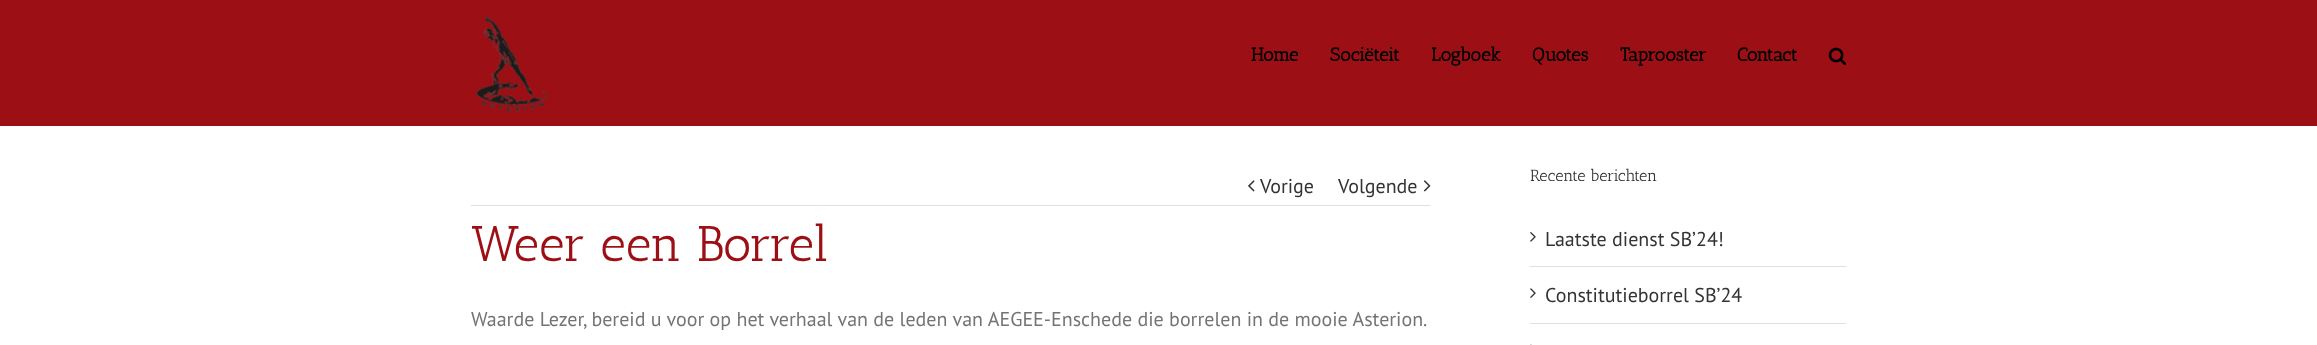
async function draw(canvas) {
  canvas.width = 2317
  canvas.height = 345
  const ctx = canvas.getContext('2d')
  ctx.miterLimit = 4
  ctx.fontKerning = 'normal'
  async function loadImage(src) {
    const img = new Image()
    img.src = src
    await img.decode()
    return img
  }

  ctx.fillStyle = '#fff'
  ctx.fillRect(0, 0, 2317, 345)
  ctx.fillStyle = '#9c1015'
  ctx.fillRect(0, 0, 2317, 126)
  ctx.drawImage(await loadImage('image0.png'), 476, 16, 72, 96)
  ctx.font = 'bold 18.75px Antic Slab'
  ctx.fillStyle = '#000'
  ctx.fillText('Home', 1251, 61)
  ctx.fillText('Sociëteit', 1330, 61)
  ctx.fillText('Logboek', 1431, 61)
  ctx.fillText('Quotes', 1532, 61)
  ctx.fillText('Taprooster', 1620, 61)
  ctx.fillText('Contact', 1737, 61)
  ctx.drawImage(await loadImage('image1.png'), 1828, 47, 18, 19)
  ctx.fillStyle = '#e0dede'
  ctx.fillRect(471, 205, 959, 1)
  ctx.drawImage(await loadImage('image2.png'), 1248, 180, 7, 12)
  ctx.font = '20px PT Sans'
  ctx.fillStyle = '#333'
  ctx.fillText('Vorige', 1260, 193)
  ctx.fillText('Volgende', 1338, 193)
  ctx.drawImage(await loadImage('image3.png'), 1424, 180, 7, 12)
  ctx.font = '50px Antic Slab'
  ctx.fillStyle = '#9c1015'
  ctx.fillText('Weer een Borrel', 471, 261)
  ctx.font = '20px PT Sans'
  ctx.fillStyle = '#747474'
  ctx.fillText('Waarde Lezer, bereid u voor op het verhaal van de leden van AEGEE-Enschede die borrelen in de mooie Asterion.', 471, 326)
  ctx.font = '16.25px Antic Slab'
  ctx.fillStyle = '#333'
  ctx.fillText('Recente berichten', 1530, 181)
  ctx.fillStyle = '#e0dede'
  ctx.fillRect(1530, 266, 316, 1)
  ctx.drawImage(await loadImage('image4.png'), 1530, 232, 6, 10)
  ctx.font = '20px PT Sans'
  ctx.fillStyle = '#333'
  ctx.fillText('Laatste dienst SB’24!', 1545, 246)
  ctx.fillStyle = '#e0dede'
  ctx.fillRect(1530, 323, 316, 1)
  ctx.drawImage(await loadImage('image5.png'), 1530, 288, 6, 10)
  ctx.fillStyle = '#333'
  ctx.fillText('Constitutieborrel SB’24', 1545, 302)
  ctx.drawImage(await loadImage('image6.png'), 1530, 344, 2, 1)
}

draw(document.querySelector('canvas'))
